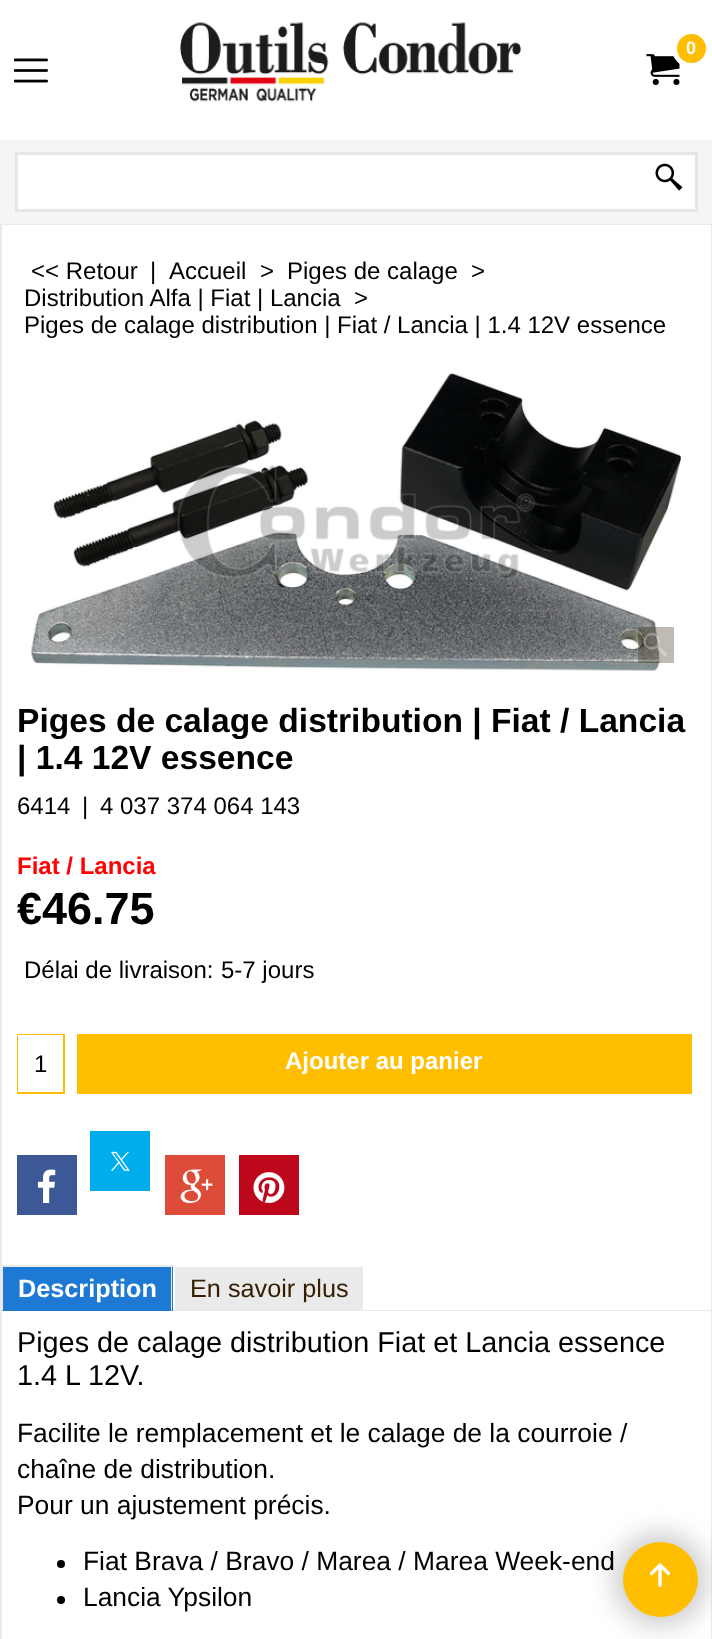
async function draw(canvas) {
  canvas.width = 712
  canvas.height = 1639
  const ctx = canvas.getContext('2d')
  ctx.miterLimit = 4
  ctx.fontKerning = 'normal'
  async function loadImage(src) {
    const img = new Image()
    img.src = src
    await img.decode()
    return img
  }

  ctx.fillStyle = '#eaeaea'
  ctx.fillRect(0, 0, 712, 1639)
  ctx.fillStyle = '#fff'
  ctx.fillRect(0, 0, 712, 140)
  ctx.drawImage(await loadImage('image0.png'), 180, 22, 342, 80)
  ctx.drawImage(await loadImage('image1.png'), 646, 54, 34, 32)
  ctx.fillStyle = '#ffbf00'
  ctx.beginPath()
  ctx.arc(691.5, 48.5, 17, 0, 2 * Math.PI)
  ctx.fill()
  ctx.strokeStyle = '#fff'
  ctx.lineWidth = 5
  ctx.stroke()
  ctx.font = 'bold 18px Liberation Sans'
  ctx.fillStyle = '#fff'
  ctx.fillText('0', 686, 54)
  ctx.drawImage(await loadImage('image2.png'), 14, 58, 34, 25)
  ctx.fillStyle = '#f5f5f6'
  ctx.fillRect(0, 140, 712, 84)
  ctx.fillStyle = '#fff'
  ctx.beginPath()
  ctx.rect(16.5, 153.5, 680, 57)
  ctx.fill()
  ctx.strokeStyle = '#e6e6e6'
  ctx.lineWidth = 3
  ctx.stroke()
  ctx.drawImage(await loadImage('image3.png'), 655, 163, 28, 28)
  ctx.fillRect(2, 225, 709, 1414)
  ctx.font = '24px Liberation Sans'
  ctx.fillStyle = '#000'
  ctx.fillText('<< Retour', 31, 279)
  ctx.fillText('|', 150, 279)
  ctx.fillText('Accueil', 169, 279)
  ctx.fillText('>', 260, 279)
  ctx.fillText('Piges de calage', 287, 279)
  ctx.fillText('>', 471, 279)
  ctx.fillText('Distribution Alfa | Fiat | Lancia', 24, 306)
  ctx.fillText('>', 354, 306)
  ctx.fillText('Piges de calage distribution | Fiat / Lancia | 1.4 12V essence', 24, 333)
  ctx.drawImage(await loadImage('image4.png'), 31, 373, 650, 298)
  ctx.fillStyle = '#2a1a004d'
  ctx.fillRect(638, 627, 36, 36)
  ctx.drawImage(await loadImage('image5.png'), 643, 633, 24, 24)
  ctx.font = 'bold 33.6px Liberation Sans'
  ctx.fillStyle = '#000'
  ctx.fillText('Piges de calage distribution | Fiat / Lancia', 17, 732)
  ctx.fillText('| 1.4 12V essence', 17, 769)
  ctx.font = '24px Liberation Sans'
  ctx.fillText('6414', 17, 814)
  ctx.fillText('|', 82, 814)
  ctx.fillText('4 037 374 064 143', 100, 814)
  ctx.font = 'bold 24px Liberation Sans'
  ctx.fillStyle = '#ff0303'
  ctx.fillText('Fiat / Lancia', 17, 874)
  ctx.font = 'bold 45px Liberation Sans'
  ctx.fillStyle = '#000'
  ctx.fillText('€46.75', 17, 924)
  ctx.font = '24px Liberation Sans'
  ctx.fillText('Délai de livraison:', 24, 978)
  ctx.fillText('5-7 jours', 221, 978)
  ctx.fillStyle = '#ffbf00'
  ctx.fillRect(17, 1034, 48, 60)
  ctx.fillStyle = '#fff'
  ctx.fillRect(18, 1035, 45, 57)
  ctx.fillStyle = '#000'
  ctx.fillText('1', 34, 1072)
  ctx.fillStyle = '#ffbf00'
  ctx.fillRect(77, 1034, 615, 60)
  ctx.font = 'bold 24px Liberation Sans'
  ctx.fillStyle = '#fff'
  ctx.fillText('Ajouter au panier', 285, 1069)
  ctx.fillStyle = '#3c5897'
  ctx.fillRect(17, 1155, 60, 60)
  ctx.drawImage(await loadImage('image6.png'), 37, 1169, 19, 34)
  ctx.fillStyle = '#00adec'
  ctx.fillRect(90, 1131, 60, 60)
  ctx.drawImage(await loadImage('image7.png'), 111, 1151, 19, 20)
  ctx.fillStyle = '#dd4c39'
  ctx.fillRect(165, 1155, 60, 60)
  ctx.drawImage(await loadImage('image8.png'), 180, 1169, 33, 34)
  ctx.fillStyle = '#bd081c'
  ctx.fillRect(239, 1155, 60, 60)
  ctx.drawImage(await loadImage('image9.png'), 253, 1172, 32, 31)
  ctx.fillStyle = '#1e79d4'
  ctx.fillRect(2, 1267, 171, 44)
  ctx.fillStyle = '#eaeaea'
  ctx.fillRect(2, 1265, 171, 2)
  ctx.beginPath()
  ctx.moveTo(172, 1264)
  ctx.lineTo(172, 1311)
  ctx.lineTo(171, 1310)
  ctx.lineTo(171, 1266)
  ctx.closePath()
  ctx.fill()
  ctx.beginPath()
  ctx.moveTo(2, 1311)
  ctx.lineTo(2, 1264)
  ctx.lineTo(3, 1266)
  ctx.lineTo(3, 1310)
  ctx.closePath()
  ctx.fill()
  ctx.font = 'bold 25.25px Liberation Sans'
  ctx.fillStyle = '#fff'
  ctx.fillText('Description', 18, 1297)
  ctx.fillStyle = '#eaeaea'
  ctx.fillRect(175, 1267, 188, 43)
  ctx.font = '25.25px Liberation Sans'
  ctx.fillStyle = '#342000'
  ctx.fillText('En savoir plus', 190, 1297)
  ctx.fillStyle = '#eaeaea'
  ctx.fillRect(173, 1310, 538, 1)
  ctx.font = '28.8px Liberation Sans'
  ctx.fillStyle = '#000'
  ctx.fillText('Piges de calage distribution Fiat et Lancia essence', 17, 1352)
  ctx.fillText('1.4 L 12V.', 17, 1385)
  ctx.font = '26.4px Liberation Sans'
  ctx.fillText('Facilite le remplacement et le calage de la courroie /', 17, 1442)
  ctx.fillText('chaîne de distribution.', 17, 1478)
  ctx.fillText('Pour un ajustement précis.', 17, 1514)
  ctx.beginPath()
  ctx.arc(61, 1564, 4, 0, 2 * Math.PI)
  ctx.fill()
  ctx.fillText('Fiat Brava / Bravo / Marea / Marea Week-end', 83, 1570)
  ctx.beginPath()
  ctx.arc(61, 1600, 4, 0, 2 * Math.PI)
  ctx.fill()
  ctx.fillText('Lancia Ypsilon', 83, 1606)
  ctx.fillStyle = '#00000033'
  ctx.filter = 'blur(13px)'
  ctx.beginPath()
  ctx.roundRect(614, 1533, 93, 93, 46.5)
  ctx.fill()
  ctx.filter = 'none'
  ctx.fillStyle = '#ffbf00'
  ctx.beginPath()
  ctx.arc(660.5, 1579.5, 37.5, 0, 2 * Math.PI)
  ctx.fill()
  ctx.drawImage(await loadImage('image10.png'), 649, 1563, 22, 24)
}

draw(document.querySelector('canvas'))
